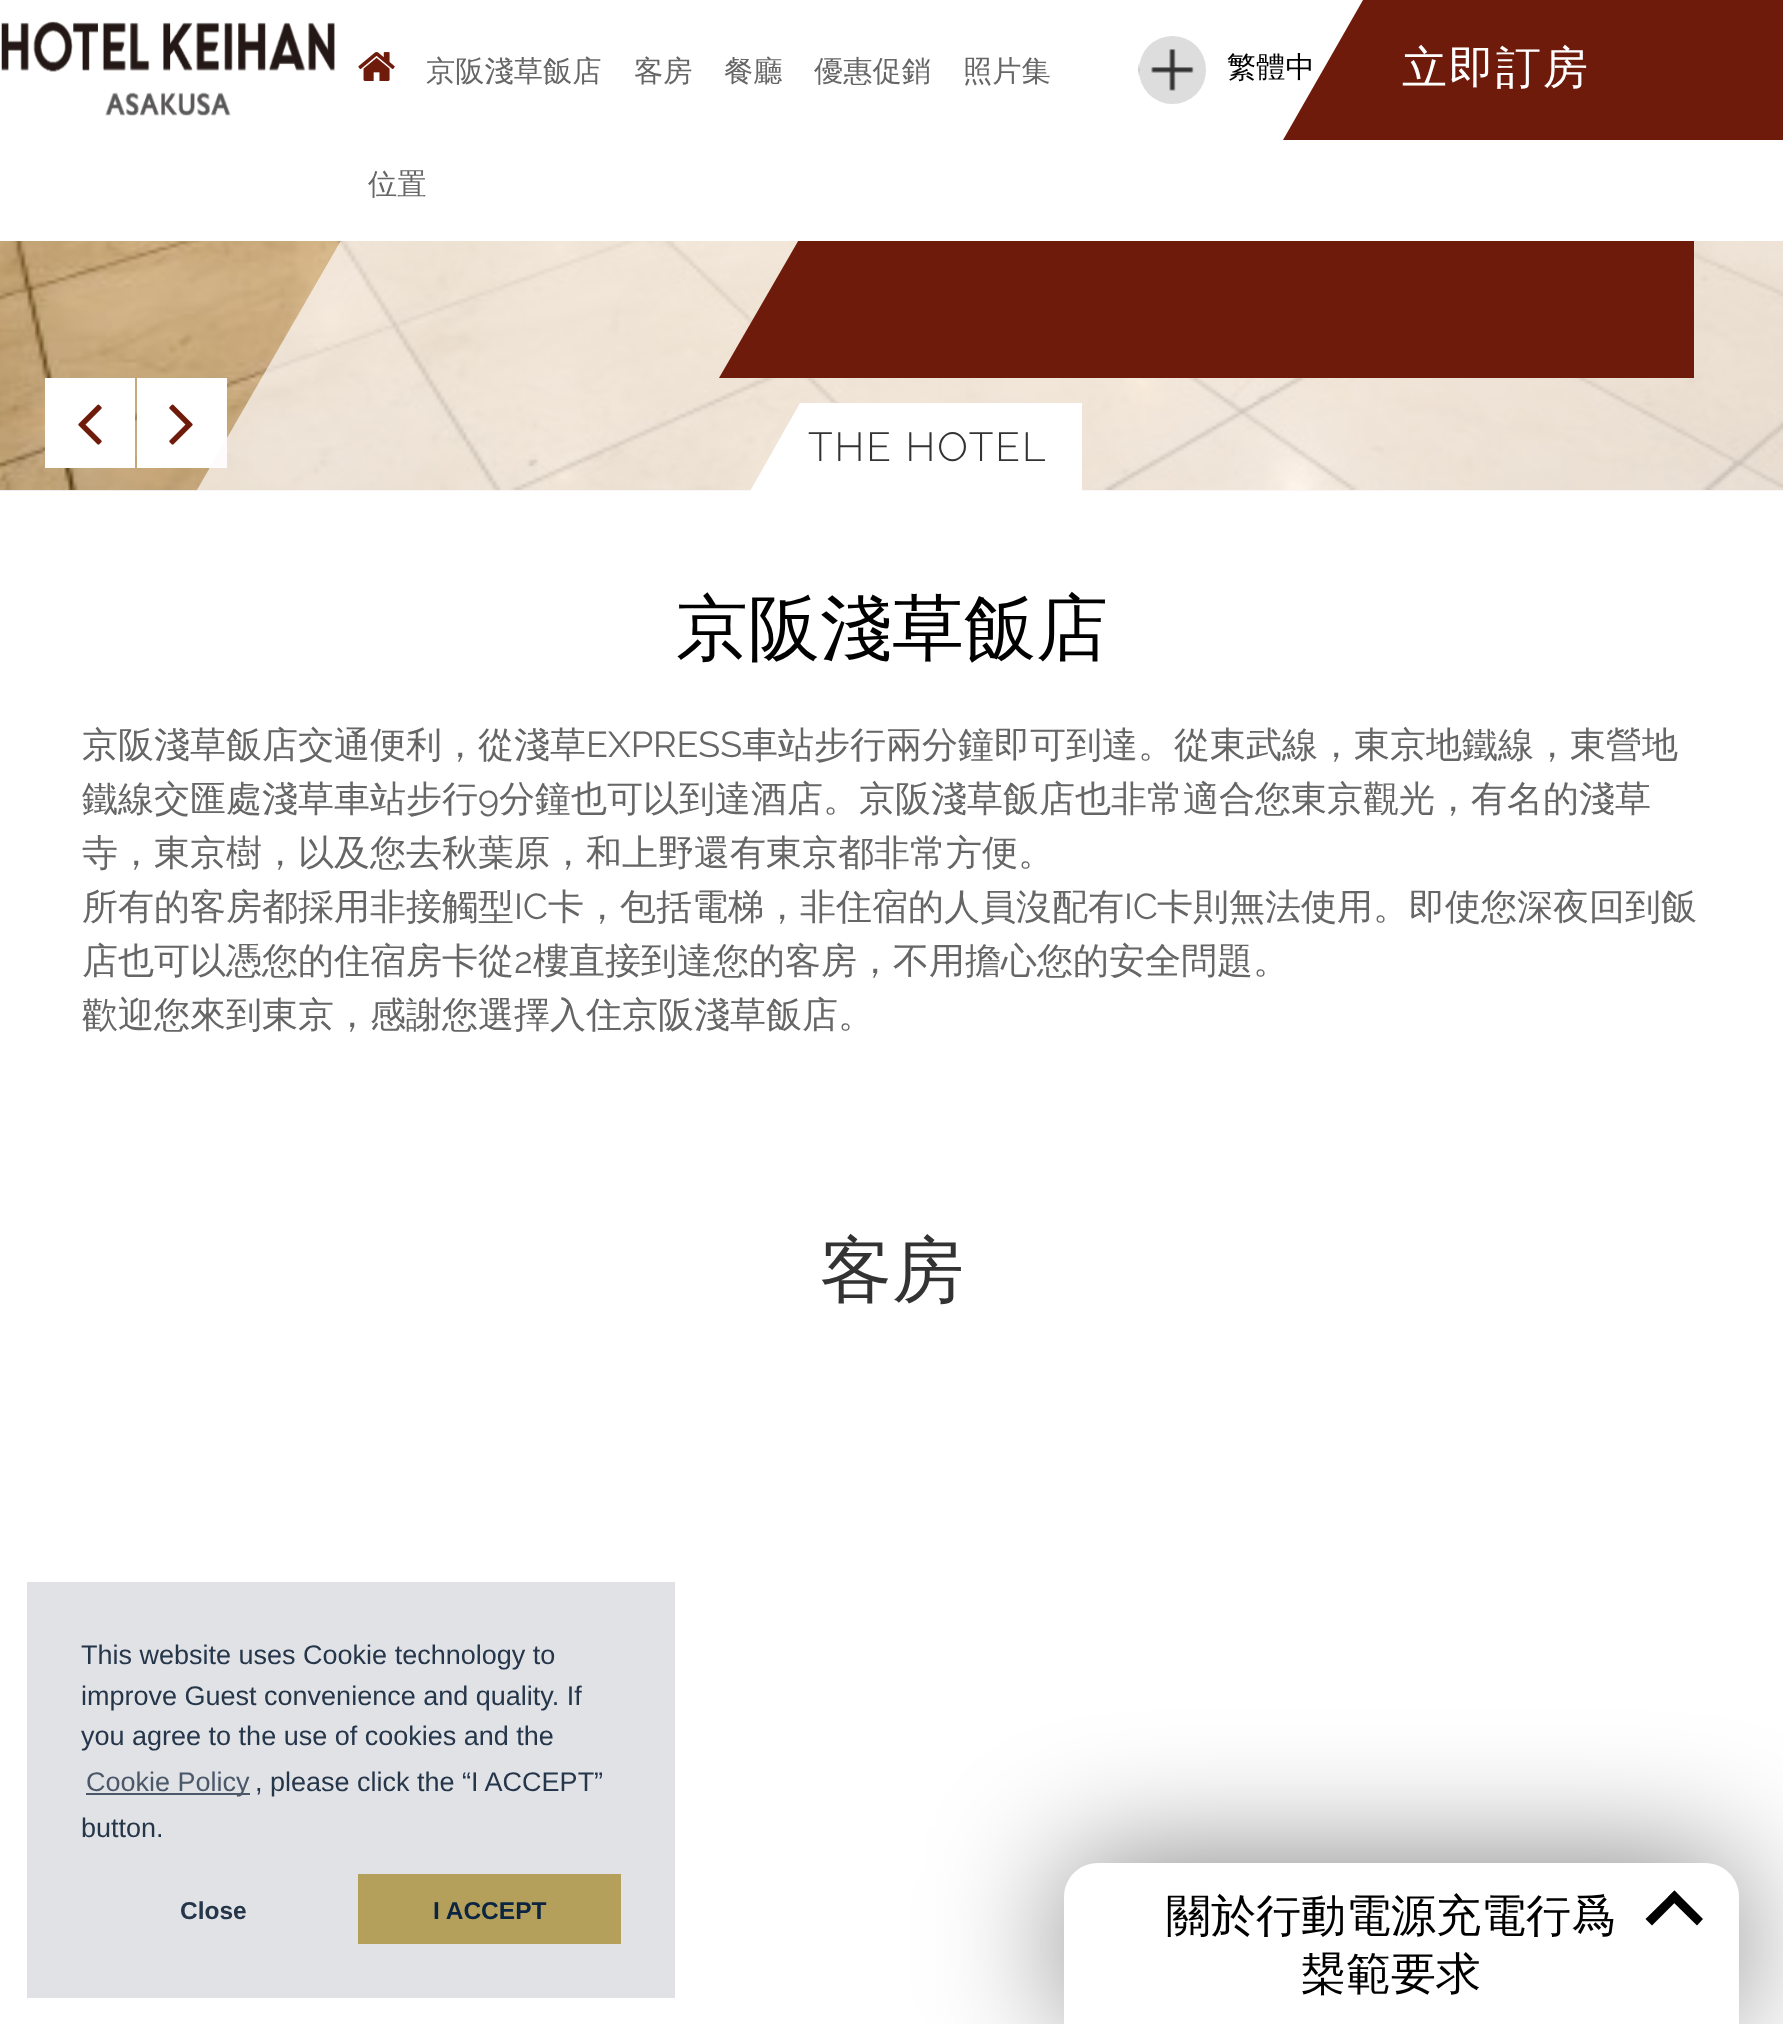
async function draw(canvas) {
  canvas.width = 1783
  canvas.height = 2024
  const ctx = canvas.getContext('2d')
  ctx.miterLimit = 4
  ctx.fontKerning = 'normal'
  async function loadImage(src) {
    const img = new Image()
    img.src = src
    await img.decode()
    return img
  }

  ctx.fillStyle = '#fff'
  ctx.fillRect(0, 0, 1783, 2024)
  ctx.fillStyle = '#eee'
  ctx.fillRect(0, 490, 1783, 1)
  ctx.drawImage(await loadImage('image0.png'), 0, 241, 1783, 249)
  ctx.fillStyle = '#fff'
  ctx.fillRect(137, 378, 90, 90)
  ctx.save()
  ctx.beginPath()
  ctx.rect(0, 0, 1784, 491)
  ctx.clip()
  ctx.fillStyle = '#fcf9f9b3'
  ctx.beginPath()
  ctx.moveTo(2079, -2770)
  ctx.lineTo(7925, 605)
  ctx.lineTo(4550, 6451)
  ctx.lineTo(-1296, 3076)
  ctx.closePath()
  ctx.fill()
  ctx.restore()
  ctx.fillStyle = '#6f1b0b'
  ctx.beginPath()
  ctx.moveTo(1005, -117)
  ctx.lineTo(1320, -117)
  ctx.lineTo(1034, 378)
  ctx.lineTo(719, 378)
  ctx.closePath()
  ctx.fill()
  ctx.fillRect(1034, 241, 660, 137)
  ctx.fillStyle = '#fff'
  ctx.fillRect(45, 378, 90, 90)
  ctx.drawImage(await loadImage('image1.png'), 78, 404, 24, 41)
  ctx.drawImage(await loadImage('image2.png'), 169, 404, 24, 41)
  ctx.fillRect(341, 0, 1442, 241)
  ctx.drawImage(await loadImage('image3.png'), 1, 21, 334, 95)
  ctx.drawImage(await loadImage('image4.png'), 358, 52, 37, 29)
  ctx.font = '500 29.25px WenQuanYi Zen Hei'
  ctx.fillStyle = '#666'
  ctx.fillText('京阪淺草飯店', 426, 81)
  ctx.fillText('客房', 634, 81)
  ctx.fillText('餐廳', 724, 81)
  ctx.fillText('優惠促銷', 814, 81)
  ctx.fillText('照片集', 963, 81)
  ctx.fillText('位置', 368, 194)
  ctx.fillStyle = '#ddd'
  ctx.beginPath()
  ctx.roundRect(1139, 36, 67, 68, 33.5)
  ctx.fill()
  ctx.drawImage(await loadImage('image5.png'), 1138, 49, 56, 42)
  ctx.fillStyle = '#000'
  ctx.fillText('繁體中', 1227, 77)
  ctx.fillStyle = '#6f1b0b'
  ctx.beginPath()
  ctx.moveTo(1363, 0)
  ctx.lineTo(1498, 0)
  ctx.lineTo(1418, 140)
  ctx.lineTo(1283, 140)
  ctx.closePath()
  ctx.fill()
  ctx.fillRect(1418, 0, 365, 140)
  ctx.letterSpacing = '2px'
  ctx.font = '500 45px WenQuanYi Zen Hei'
  ctx.fillStyle = '#fff'
  ctx.fillText('立即訂房', 1402, 83)
  ctx.beginPath()
  ctx.moveTo(800, 403)
  ctx.lineTo(868, 403)
  ctx.lineTo(816, 493)
  ctx.lineTo(749, 493)
  ctx.closePath()
  ctx.fill()
  ctx.fillRect(817, 403, 265, 88)
  ctx.font = '300 40.5px Raleway'
  ctx.fillStyle = '#333'
  ctx.fillText('THE HOTEL', 808, 461)
  ctx.letterSpacing = '0px'
  ctx.font = '500 72px WenQuanYi Zen Hei'
  ctx.fillStyle = '#000'
  ctx.fillText('京阪淺草飯店', 676, 653)
  ctx.font = '500 36px WenQuanYi Zen Hei'
  ctx.fillStyle = '#666'
  ctx.fillText('京阪淺草飯店交通便利，從淺草', 82, 757)
  ctx.font = '36px Raleway'
  ctx.fillText('EXPRESS', 586, 757)
  ctx.font = '500 36px WenQuanYi Zen Hei'
  ctx.fillText('車站步行兩分鐘即可到達。從東武線，東京地鐵線，東營地', 742, 757)
  ctx.fillText('鐵線交匯處淺草車站步行', 82, 811)
  ctx.font = '36px Raleway'
  ctx.fillText('9', 478, 811)
  ctx.font = '500 36px WenQuanYi Zen Hei'
  ctx.fillText('分鐘也可以到達酒店。京阪淺草飯店也非常適合您東京觀光，有名的淺草', 499, 811)
  ctx.fillText('寺，東京樹，以及您去秋葉原，和上野還有東京都非常方便。', 82, 865)
  ctx.fillText('所有的客房都採用非接觸型', 82, 919)
  ctx.font = '36px Raleway'
  ctx.fillText('IC', 514, 919)
  ctx.font = '500 36px WenQuanYi Zen Hei'
  ctx.fillText('卡，包括電梯，非住宿的人員沒配有', 548, 919)
  ctx.font = '36px Raleway'
  ctx.fillText('IC', 1124, 919)
  ctx.font = '500 36px WenQuanYi Zen Hei'
  ctx.fillText('卡則無法使用。即使您深夜回到飯', 1157, 919)
  ctx.fillText('店也可以憑您的住宿房卡從', 82, 973)
  ctx.font = '36px Raleway'
  ctx.fillText('2', 514, 973)
  ctx.font = '500 36px WenQuanYi Zen Hei'
  ctx.fillText('樓直接到達您的客房，不用擔心您的安全問題。', 533, 973)
  ctx.fillText('歡迎您來到東京，感謝您選擇入住京阪淺草飯店。', 82, 1027)
  ctx.font = '500 72px WenQuanYi Zen Hei'
  ctx.fillStyle = '#333'
  ctx.fillText('客房', 820, 1295)
  ctx.fillStyle = '#e1e2e6'
  ctx.fillRect(27, 1582, 648, 416)
  ctx.font = '27px Liberation Sans'
  ctx.fillStyle = '#25364a'
  ctx.fillText('This website uses Cookie technology to', 81, 1664)
  ctx.fillText('improve Guest convenience and quality. If', 81, 1705)
  ctx.fillText('you agree to the use of cookies and the', 81, 1745)
  ctx.fillStyle = '#4b5869'
  ctx.fillRect(86, 1793, 164, 2)
  ctx.fillText('Cookie Policy', 86, 1791)
  ctx.fillStyle = '#25364a'
  ctx.fillText(', please click the “I ACCEPT”', 255, 1791)
  ctx.fillText('button.', 81, 1837)
  ctx.font = 'bold 24.5px Liberation Sans'
  ctx.fillText('Close', 180, 1919)
  ctx.fillStyle = '#b5a05b'
  ctx.fillRect(358, 1874, 263, 70)
  ctx.fillStyle = '#0a2442'
  ctx.fillText('I ACCEPT', 433, 1919)
  ctx.fillStyle = '#00000080'
  ctx.filter = 'blur(67.5px)'
  ctx.beginPath()
  ctx.roundRect(1064, 1863, 675, 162, 34)
  ctx.fill()
  ctx.filter = 'none'
  ctx.fillStyle = '#fff'
  ctx.beginPath()
  ctx.moveTo(1098, 1863)
  ctx.lineTo(1705, 1863)
  ctx.bezierCurveTo(1724, 1863, 1739, 1878, 1739, 1897)
  ctx.lineTo(1739, 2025)
  ctx.lineTo(1064, 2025)
  ctx.lineTo(1064, 1897)
  ctx.bezierCurveTo(1064, 1878, 1079, 1863, 1098, 1863)
  ctx.closePath()
  ctx.fill()
  ctx.font = '500 45px WenQuanYi Zen Hei'
  ctx.fillStyle = '#000'
  ctx.fillText('關於行動電源充電行爲', 1166, 1931)
  ctx.fillText('槼範要求', 1301, 1989)
  ctx.beginPath()
  ctx.moveTo(1674.5, 1890.5)
  ctx.lineTo(1703, 1919)
  ctx.lineTo(1697, 1925.5)
  ctx.lineTo(1668, 1897)
  ctx.closePath()
  ctx.fill()
  ctx.beginPath()
  ctx.moveTo(1645.5, 1919)
  ctx.lineTo(1674.5, 1890.5)
  ctx.lineTo(1680.5, 1897)
  ctx.lineTo(1652, 1925.5)
  ctx.closePath()
  ctx.fill()
}

draw(document.querySelector('canvas'))
